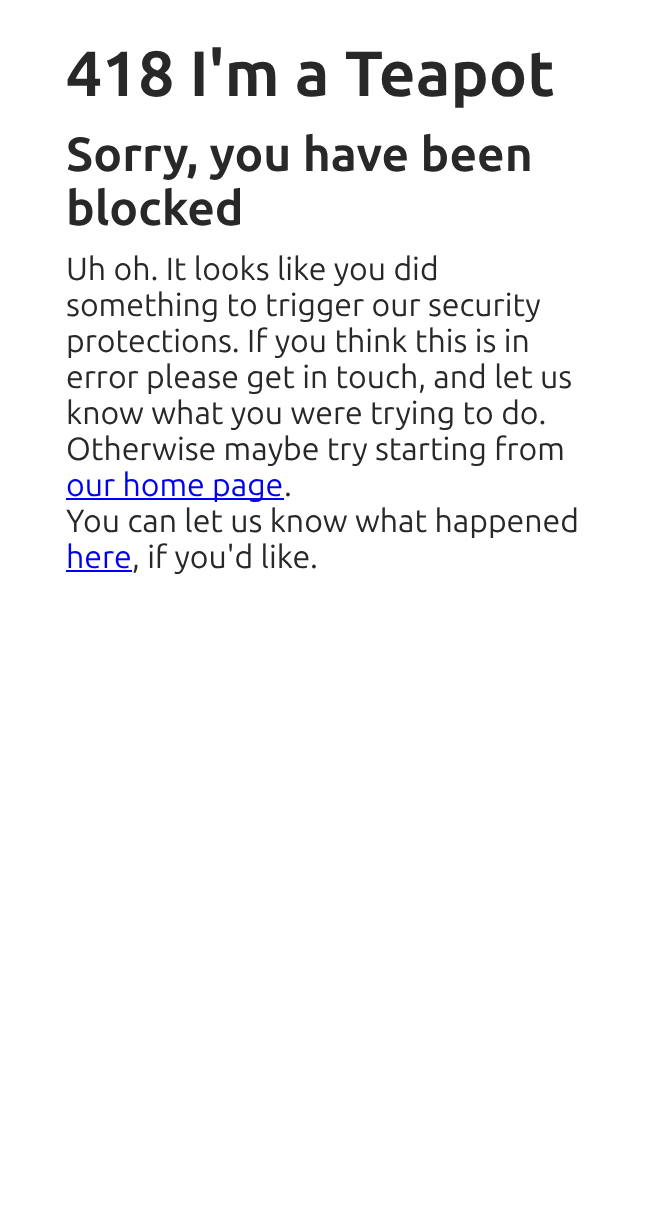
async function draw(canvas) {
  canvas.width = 663
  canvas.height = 1220
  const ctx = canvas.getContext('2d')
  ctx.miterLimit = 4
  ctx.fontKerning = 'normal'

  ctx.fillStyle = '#fff'
  ctx.fillRect(0, 0, 663, 1220)
  ctx.font = 'bold 64px Ubuntu'
  ctx.fillStyle = '#282828'
  ctx.fillText('418 I\'m a Teapot', 66, 96)
  ctx.font = 'bold 48px Ubuntu'
  ctx.fillText('Sorry, you have been', 66, 171)
  ctx.fillText('blocked', 66, 225)
  ctx.font = '32px Ubuntu'
  ctx.fillText('Uh oh. It looks like you did', 66, 280)
  ctx.fillText('something to trigger our security', 66, 316)
  ctx.fillText('protections. If you think this is in', 66, 352)
  ctx.fillText('error please get in touch, and let us', 66, 388)
  ctx.fillText('know what you were trying to do.', 66, 424)
  ctx.fillText('Otherwise maybe try starting from', 66, 460)
  ctx.fillStyle = '#00e'
  ctx.fillRect(66, 498, 218, 2)
  ctx.fillText('our home page', 66, 496)
  ctx.fillStyle = '#282828'
  ctx.fillText('.', 284, 496)
  ctx.fillText('You can let us know what happened', 66, 532)
  ctx.fillStyle = '#00e'
  ctx.fillText('here', 66, 568)
  ctx.fillRect(66, 570, 66, 2)
  ctx.fillStyle = '#282828'
  ctx.fillText(', if you\'d like.', 132, 568)
}

draw(document.querySelector('canvas'))
